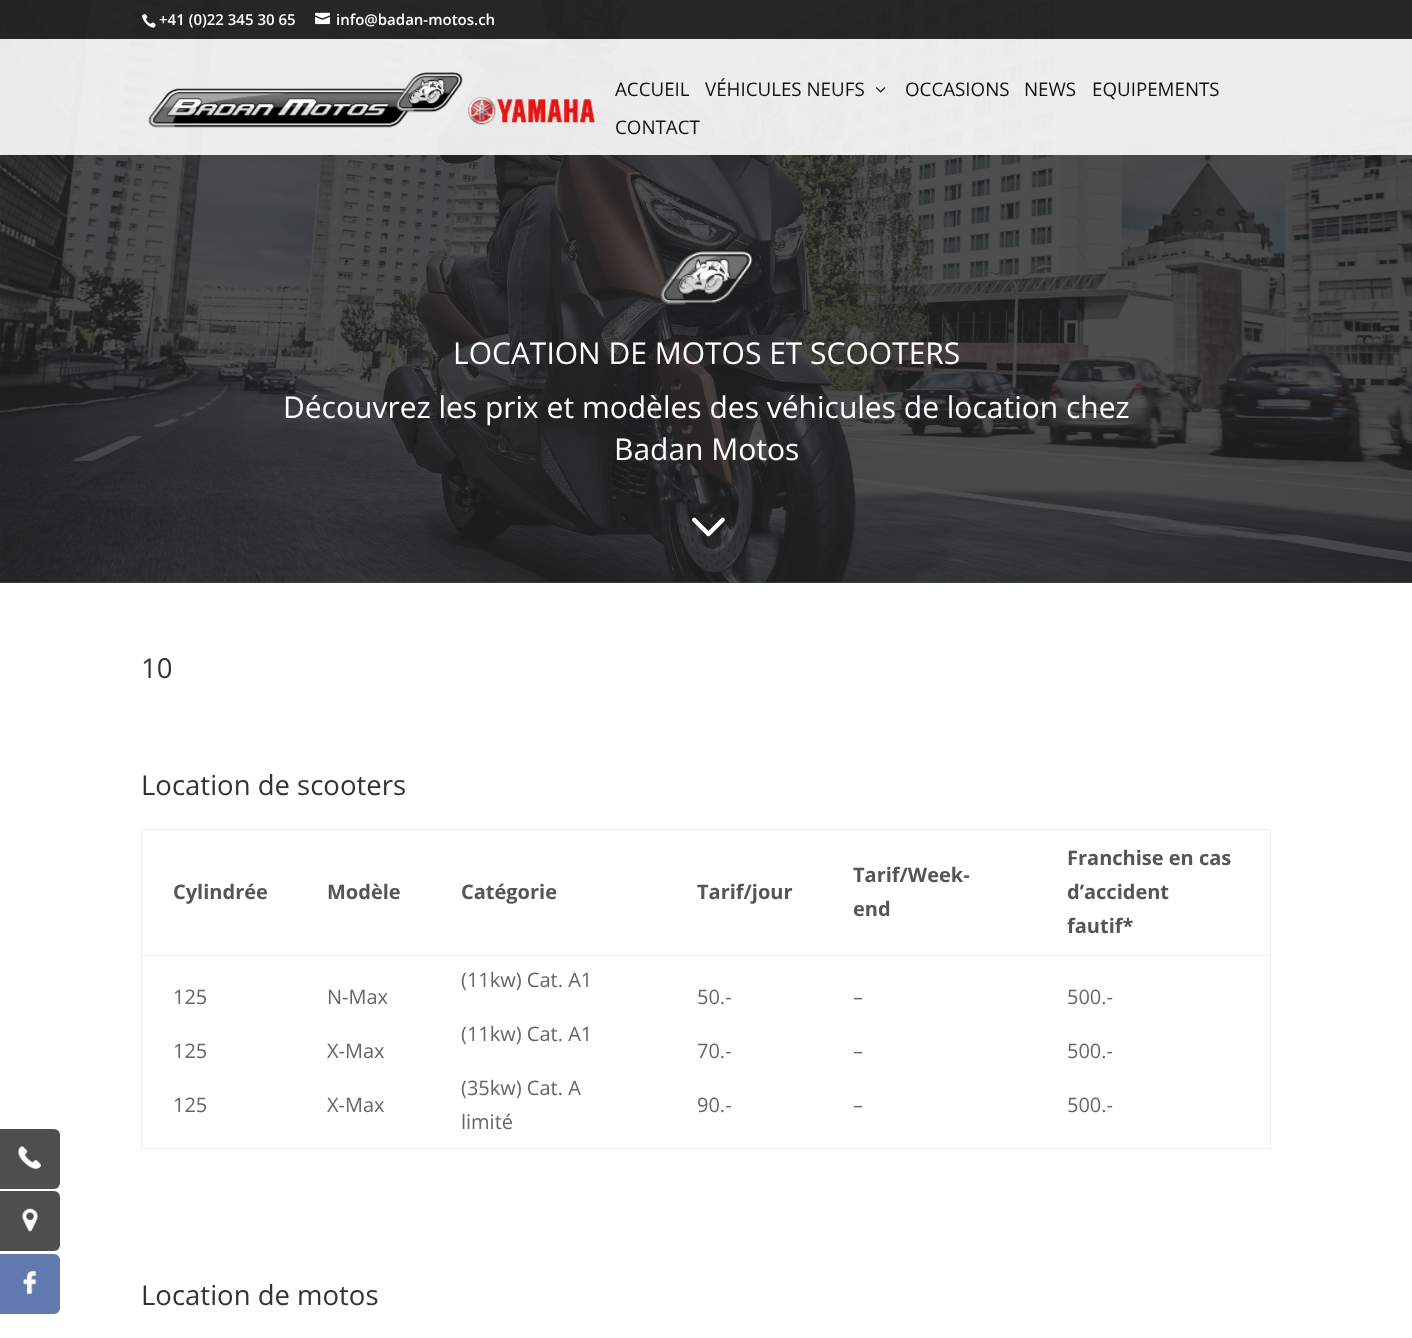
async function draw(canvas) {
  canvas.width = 1412
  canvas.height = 1338
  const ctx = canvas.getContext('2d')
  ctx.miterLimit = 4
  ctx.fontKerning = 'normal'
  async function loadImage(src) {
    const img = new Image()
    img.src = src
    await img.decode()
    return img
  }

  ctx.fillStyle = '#fff'
  ctx.fillRect(0, 0, 1412, 1338)
  ctx.fillStyle = '#4e4e4e'
  ctx.fillRect(0, 582, 1412, 1)
  ctx.beginPath()
  ctx.roundRect(0, 1129, 60, 60, [0, 6, 6, 0])
  ctx.fill()
  ctx.drawImage(await loadImage('image0.png'), 18, 1146, 23, 23)
  ctx.drawImage(await loadImage('image5.png'), 0, 0, 1412, 583)
  ctx.fillStyle = '#222222e6'
  ctx.fillRect(0, 0, 1412, 39)
  ctx.drawImage(await loadImage('image1.png'), 141, 14, 15, 14)
  ctx.font = '600 15px Open Sans'
  ctx.fillStyle = '#fff'
  ctx.fillText('+41 (0)22 345 30 65', 159, 25)
  ctx.drawImage(await loadImage('image2.png'), 315, 12, 15, 13)
  ctx.fillText('info@badan-motos.ch', 336, 25)
  ctx.fillStyle = '#ffffffe6'
  ctx.fillRect(0, 39, 1412, 116)
  ctx.drawImage(await loadImage('image3.png'), 148, 72, 448, 56)
  ctx.font = '18.75px Open Sans'
  ctx.fillStyle = '#111'
  ctx.fillText('ACCUEIL', 615, 96)
  ctx.fillText('VÉHICULES NEUFS', 705, 96)
  ctx.drawImage(await loadImage('image4.png'), 876, 87, 10, 6)
  ctx.fillText('OCCASIONS', 905, 96)
  ctx.fillText('NEWS', 1024, 96)
  ctx.fillText('EQUIPEMENTS', 1092, 96)
  ctx.fillText('CONTACT', 615, 134)
  ctx.drawImage(await loadImage('image6.png'), 660, 250, 94, 55)
  ctx.font = '30px Open Sans'
  ctx.fillStyle = '#fff'
  ctx.fillText('LOCATION DE MOTOS ET SCOOTERS', 453, 364)
  ctx.fillText('Découvrez les prix et modèles des véhicules de location chez', 283, 418)
  ctx.fillText('Badan Motos', 614, 460)
  ctx.drawImage(await loadImage('image7.png'), 692, 517, 33, 20)
  ctx.font = '27.5px Open Sans'
  ctx.fillStyle = '#333'
  ctx.fillText('10', 141, 678)
  ctx.fillText('Location de scooters', 141, 795)
  ctx.fillStyle = '#eee'
  ctx.fillRect(141, 829, 1130, 1)
  ctx.fillRect(1270, 829, 1, 320)
  ctx.fillRect(141, 1148, 1130, 1)
  ctx.fillRect(141, 829, 1, 320)
  ctx.font = 'bold 20px Open Sans'
  ctx.fillStyle = '#555'
  ctx.fillText('Cylindrée', 173, 899)
  ctx.fillText('Modèle', 327, 899)
  ctx.fillText('Catégorie', 461, 899)
  ctx.fillText('Tarif/jour', 697, 899)
  ctx.fillText('Tarif/Week-', 853, 882)
  ctx.fillText('end', 853, 916)
  ctx.fillText('Franchise en cas', 1067, 865)
  ctx.fillText('d’accident', 1067, 899)
  ctx.fillText('fautif*', 1067, 933)
  ctx.font = '20px Open Sans'
  ctx.fillStyle = '#666'
  ctx.fillText('125', 173, 1004)
  ctx.fillText('125', 173, 1058)
  ctx.fillText('125', 173, 1112)
  ctx.fillText('N-Max', 327, 1004)
  ctx.fillText('X-Max', 327, 1058)
  ctx.fillText('X-Max', 327, 1112)
  ctx.fillText('(11kw) Cat. A1', 461, 987)
  ctx.fillText('(11kw) Cat. A1', 461, 1041)
  ctx.fillText('(35kw) Cat. A', 461, 1095)
  ctx.fillText('limité', 461, 1129)
  ctx.fillText('50.-', 697, 1004)
  ctx.fillText('70.-', 697, 1058)
  ctx.fillText('90.-', 697, 1112)
  ctx.fillText('–', 853, 1004)
  ctx.fillText('–', 853, 1058)
  ctx.fillText('–', 853, 1112)
  ctx.fillStyle = '#eee'
  ctx.fillRect(141, 955, 1130, 1)
  ctx.fillStyle = '#666'
  ctx.fillText('500.-', 1067, 1004)
  ctx.fillText('500.-', 1067, 1058)
  ctx.fillText('500.-', 1067, 1112)
  ctx.font = '27.5px Open Sans'
  ctx.fillStyle = '#333'
  ctx.fillText('Location de motos', 141, 1305)
  ctx.fillStyle = '#4e4e4e'
  ctx.beginPath()
  ctx.roundRect(0, 1191, 60, 60, [0, 6, 6, 0])
  ctx.fill()
  ctx.drawImage(await loadImage('image8.png'), 22, 1208, 16, 24)
  ctx.fillStyle = '#6179ae'
  ctx.beginPath()
  ctx.roundRect(0, 1254, 60, 60, [0, 6, 6, 0])
  ctx.fill()
  ctx.drawImage(await loadImage('image9.png'), 23, 1271, 14, 23)
}

draw(document.querySelector('canvas'))
